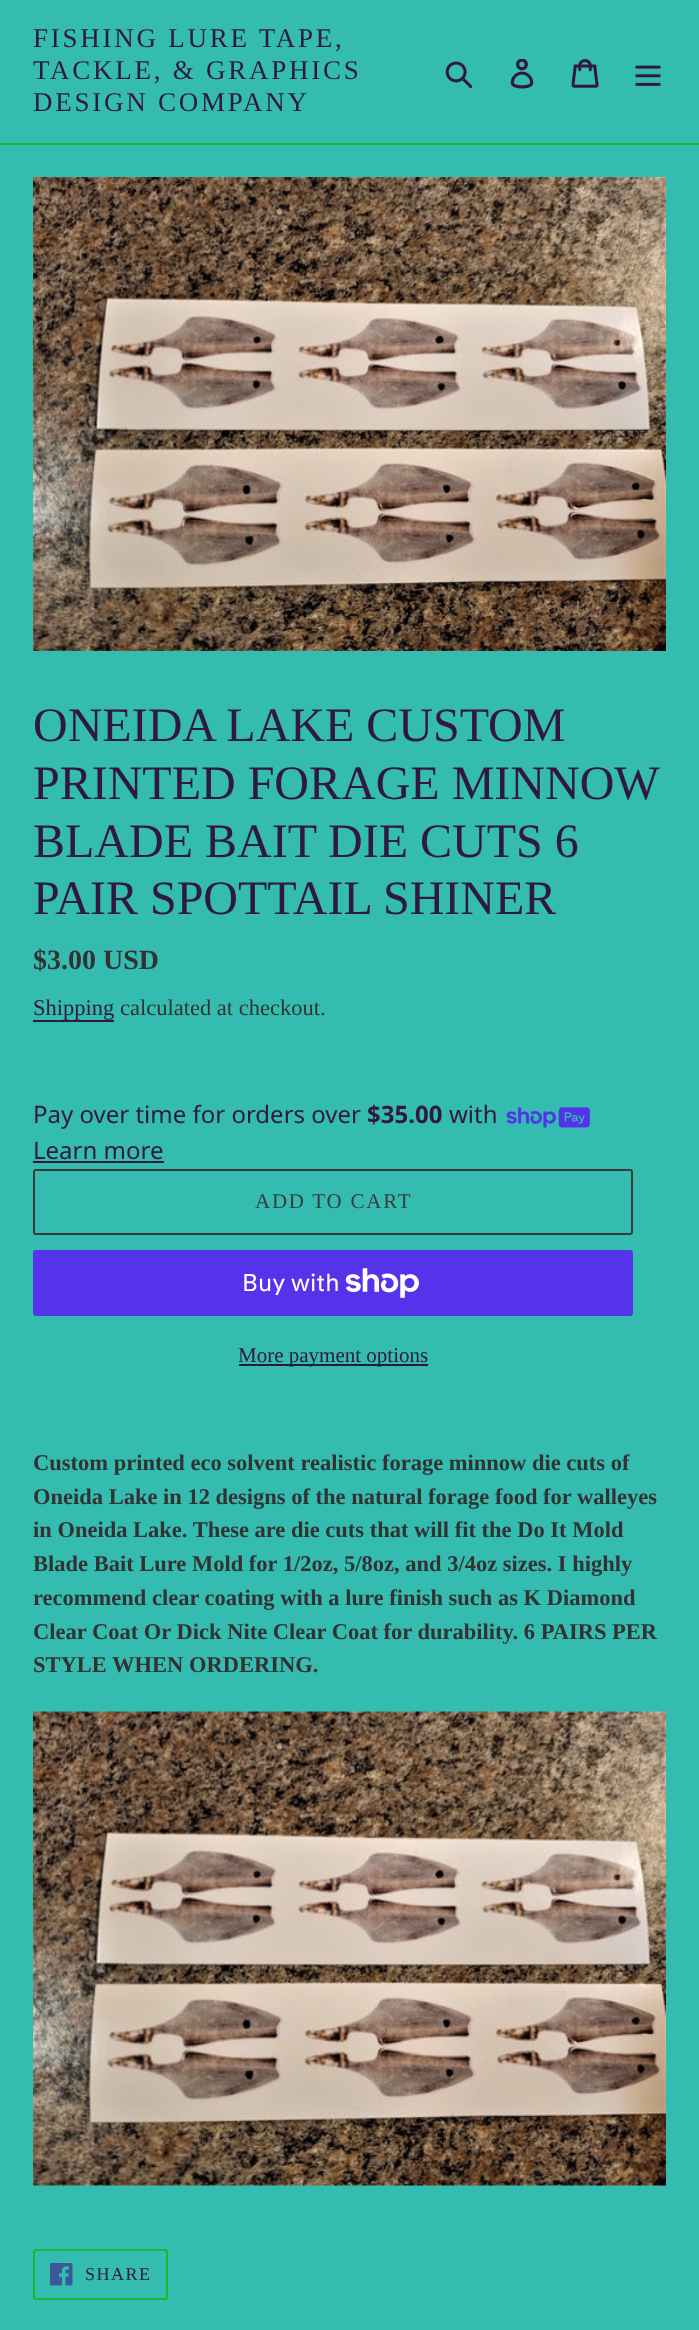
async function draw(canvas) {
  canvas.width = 699
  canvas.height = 2330
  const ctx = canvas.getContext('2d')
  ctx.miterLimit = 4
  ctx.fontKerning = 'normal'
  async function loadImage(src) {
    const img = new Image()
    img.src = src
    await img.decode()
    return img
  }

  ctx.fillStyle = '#34bcb0'
  ctx.fillRect(0, 0, 699, 2330)
  ctx.fillStyle = '#18b930'
  ctx.fillRect(0, 143, 699, 2)
  ctx.letterSpacing = '2.75px'
  ctx.font = '27px Liberation Serif'
  ctx.fillStyle = '#301840'
  ctx.fillText('FISHING LURE TAPE,', 33, 47)
  ctx.fillText('TACKLE, & GRAPHICS', 33, 79)
  ctx.fillText('DESIGN COMPANY', 33, 111)
  ctx.drawImage(await loadImage('image0.png'), 445, 61, 28, 28)
  ctx.drawImage(await loadImage('image1.png'), 510, 59, 24, 30)
  ctx.drawImage(await loadImage('image2.png'), 571, 59, 28, 29)
  ctx.drawImage(await loadImage('image3.png'), 635, 65, 26, 21)
  ctx.drawImage(await loadImage('image4.png'), 33, 177, 633, 474)
  ctx.letterSpacing = '0px'
  ctx.font = '48px Liberation Serif'
  ctx.fillText('ONEIDA LAKE CUSTOM', 33, 741)
  ctx.fillText('PRINTED FORAGE MINNOW', 33, 799)
  ctx.fillText('BLADE BAIT DIE CUTS 6', 33, 857)
  ctx.fillText('PAIR SPOTTAIL SHINER', 33, 914)
  ctx.font = 'bold 28px Liberation Serif'
  ctx.fillStyle = '#333232'
  ctx.fillText('$3.00 USD', 33, 969)
  ctx.font = '22.5px Liberation Serif'
  ctx.fillStyle = '#301840'
  ctx.fillText('Shipping', 33, 1015)
  ctx.fillRect(33, 1020, 81, 2)
  ctx.fillStyle = '#333232'
  ctx.fillText('calculated at checkout.', 120, 1015)
  ctx.font = '24px Noto Sans'
  ctx.fillStyle = '#301840'
  ctx.fillText('Pay over time for orders over', 33, 1123)
  ctx.font = 'bold 24px Noto Sans'
  ctx.fillText('$35.00', 367, 1123)
  ctx.font = '24px Noto Sans'
  ctx.fillText('with', 449, 1123)
  ctx.drawImage(await loadImage('image5.png'), 506, 1107, 84, 21)
  ctx.fillText('Learn more', 33, 1159)
  ctx.fillRect(33, 1161, 131, 2)
  ctx.beginPath()
  ctx.roundRect(34, 1170, 598, 64, 2)
  ctx.strokeStyle = '#3a3a3a'
  ctx.lineWidth = 2
  ctx.stroke()
  ctx.letterSpacing = '1.75px'
  ctx.font = '21px Liberation Serif'
  ctx.fillStyle = '#3a3a3a'
  ctx.fillText('ADD TO CART', 255, 1208)
  ctx.fillStyle = '#5433eb'
  ctx.beginPath()
  ctx.roundRect(33, 1250, 600, 66, 3)
  ctx.fill()
  ctx.letterSpacing = '0px'
  ctx.font = '24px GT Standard'
  ctx.fillStyle = '#fff'
  ctx.fillText('Buy with', 242, 1291)
  ctx.drawImage(await loadImage('image6.png'), 345, 1268, 74, 30)
  ctx.fillStyle = '#301840'
  ctx.fillRect(239, 1364, 189, 2)
  ctx.font = '21px Liberation Serif'
  ctx.fillText('More payment options', 238, 1362)
  ctx.font = 'bold 22.5px Liberation Serif'
  ctx.fillStyle = '#333232'
  ctx.fillText('Custom printed eco solvent realistic forage minnow die cuts of', 33, 1470)
  ctx.fillText('Oneida Lake in 12 designs of the natural forage food for walleyes', 33, 1504)
  ctx.fillText('in Oneida Lake. These are die cuts that will fit the Do It Mold', 33, 1537)
  ctx.fillText('Blade Bait Lure Mold for 1/2oz, 5/8oz, and 3/4oz sizes. I highly', 33, 1571)
  ctx.fillText('recommend clear coating with a lure finish such as K Diamond', 33, 1605)
  ctx.fillText('Clear Coat Or Dick Nite Clear Coat for durability. 6 PAIRS PER', 33, 1639)
  ctx.fillText('STYLE WHEN ORDERING.', 33, 1672)
  ctx.drawImage(await loadImage('image7.png'), 33, 1711, 633, 475)
  ctx.beginPath()
  ctx.roundRect(34, 2250, 133, 49, 2)
  ctx.strokeStyle = '#18b930'
  ctx.stroke()
  ctx.drawImage(await loadImage('image8.png'), 50, 2263, 23, 23)
  ctx.letterSpacing = '1.5px'
  ctx.font = '18px Liberation Serif'
  ctx.fillStyle = '#301840'
  ctx.fillText('SHARE', 85, 2280)
}

draw(document.querySelector('canvas'))
